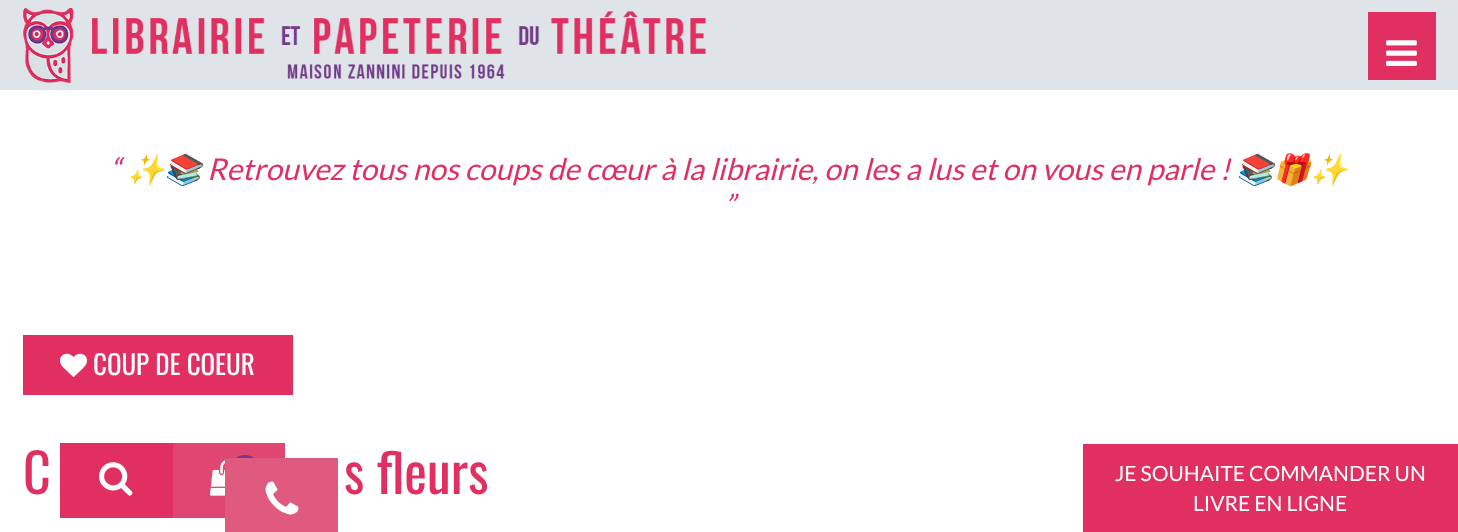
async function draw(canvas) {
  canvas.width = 1458
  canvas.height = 532
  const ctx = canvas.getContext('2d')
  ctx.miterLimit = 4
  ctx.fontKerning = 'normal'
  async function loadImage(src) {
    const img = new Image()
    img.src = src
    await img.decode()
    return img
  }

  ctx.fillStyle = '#fff'
  ctx.fillRect(0, 0, 1458, 532)
  ctx.fillStyle = '#dee4e8'
  ctx.fillRect(0, 0, 1458, 90)
  ctx.drawImage(await loadImage('image0.png'), 23, 8, 683, 75)
  ctx.fillStyle = '#e12f61'
  ctx.fillRect(60, 443, 113, 75)
  ctx.drawImage(await loadImage('image1.png'), 99, 462, 34, 34)
  ctx.fillStyle = '#df4671'
  ctx.fillRect(173, 443, 112, 75)
  ctx.drawImage(await loadImage('image2.png'), 210, 460, 15, 36)
  ctx.fillStyle = '#733a8a'
  ctx.beginPath()
  ctx.arc(245, 470, 15, 0, 2 * Math.PI)
  ctx.fill()
  ctx.fillStyle = '#e12f61'
  ctx.fillRect(1368, 12, 68, 68)
  ctx.drawImage(await loadImage('image3.png'), 1386, 40, 31, 26)
  ctx.fillStyle = '#e0597f'
  ctx.fillRect(225, 458, 113, 74)
  ctx.drawImage(await loadImage('image4.png'), 265, 481, 34, 34)
  ctx.font = 'italic 30px Lato'
  ctx.fillStyle = '#e12f61'
  ctx.fillText('“', 110, 180)
  ctx.font = 'italic 30px Noto Color Emoji'
  ctx.fillText('✨📚', 127, 180)
  ctx.font = 'italic 30px Lato'
  ctx.fillText('Retrouvez tous nos coups de cœur à la librairie, on les a lus et on vous en parle !', 207, 180)
  ctx.font = 'italic 30px Noto Color Emoji'
  ctx.fillText('📚🎁✨', 1236, 180)
  ctx.font = 'italic 30px Lato'
  ctx.fillText('”', 724, 216)
  ctx.fillRect(23, 335, 270, 60)
  ctx.drawImage(await loadImage('image5.png'), 60, 353, 27, 24)
  ctx.font = '27px Oswald'
  ctx.fillStyle = '#fff'
  ctx.fillText('COUP DE COEUR', 93, 375)
  ctx.font = '54px Oswald'
  ctx.fillStyle = '#e12f61'
  ctx.fillText('C', 23, 494)
  ctx.fillText('s fleurs', 344, 494)
  ctx.fillRect(1083, 444, 375, 88)
  ctx.font = '21px Lato'
  ctx.fillStyle = '#fff'
  ctx.fillText('JE SOUHAITE COMMANDER UN', 1115, 481)
  ctx.fillText('LIVRE EN LIGNE', 1193, 511)
}

draw(document.querySelector('canvas'))
